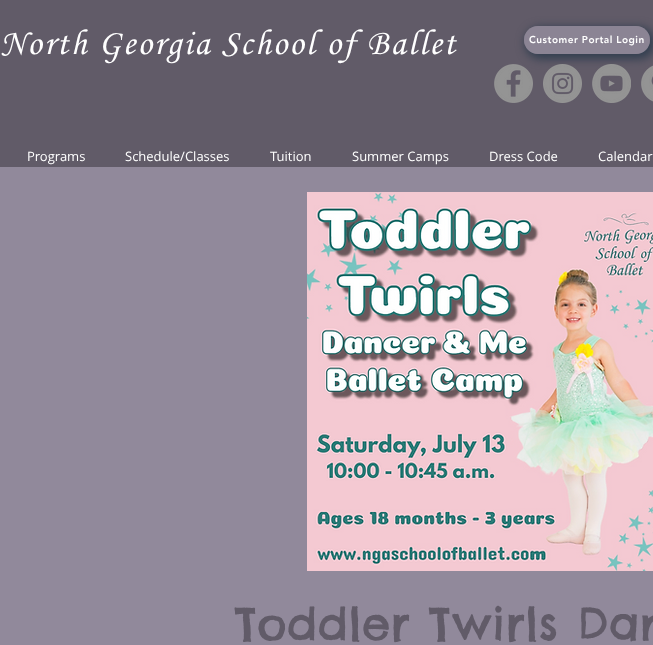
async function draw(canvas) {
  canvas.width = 653
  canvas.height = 645
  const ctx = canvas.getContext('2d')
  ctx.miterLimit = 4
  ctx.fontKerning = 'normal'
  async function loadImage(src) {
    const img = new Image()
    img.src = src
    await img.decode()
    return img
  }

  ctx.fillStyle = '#91899b'
  ctx.fillRect(0, 0, 653, 645)
  ctx.fillStyle = '#615b68'
  ctx.fillRect(0, 0, 653, 167)
  ctx.letterSpacing = '2.15px'
  ctx.font = 'italic 36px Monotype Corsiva'
  ctx.fillStyle = '#fff'
  ctx.fillText('North Georgia School of Ballet', 0, 54)
  ctx.save()
  ctx.beginPath()
  ctx.moveTo(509, 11)
  ctx.lineTo(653, 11)
  ctx.lineTo(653, 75)
  ctx.lineTo(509, 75)
  ctx.closePath()
  ctx.moveTo(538, 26)
  ctx.lineTo(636, 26)
  ctx.bezierCurveTo(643.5, 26, 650, 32.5, 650, 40)
  ctx.bezierCurveTo(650, 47.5, 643.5, 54, 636, 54)
  ctx.lineTo(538, 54)
  ctx.bezierCurveTo(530.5, 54, 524, 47.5, 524, 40)
  ctx.bezierCurveTo(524, 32.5, 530.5, 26, 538, 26)
  ctx.closePath()
  ctx.clip('evenodd')
  ctx.fillStyle = '#313e4f'
  ctx.filter = 'blur(5px)'
  ctx.beginPath()
  ctx.roundRect(525, 27, 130, 32, 16)
  ctx.fill()
  ctx.filter = 'none'
  ctx.restore()
  ctx.fillStyle = '#dfd9e745'
  ctx.beginPath()
  ctx.roundRect(524, 26, 126, 28, 14)
  ctx.fill()
  ctx.fillStyle = '#91899b99'
  ctx.beginPath()
  ctx.roundRect(524, 26, 126, 28, 14)
  ctx.fill()
  ctx.letterSpacing = '0.5px'
  ctx.font = '900 10px "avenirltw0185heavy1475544"'
  ctx.fillStyle = '#fff'
  ctx.fillText('Customer Portal Login', 529, 43)
  ctx.drawImage(await loadImage('image0.png'), 494, 64, 39, 39)
  ctx.drawImage(await loadImage('image1.png'), 543, 64, 39, 39)
  ctx.drawImage(await loadImage('image2.png'), 592, 64, 39, 39)
  ctx.drawImage(await loadImage('image3.png'), 641, 65, 12, 37)
  ctx.letterSpacing = '0px'
  ctx.font = '13px Open Sans'
  ctx.fillText('Programs', 27, 161)
  ctx.fillText('Schedule/Classes', 125, 161)
  ctx.fillText('Tuition', 270, 161)
  ctx.fillText('Summer Camps', 352, 161)
  ctx.fillText('Dress Code', 489, 161)
  ctx.fillText('Calendar', 598, 161)
  ctx.drawImage(await loadImage('image4.png'), 307, 192, 346, 379)
  ctx.letterSpacing = '0.5px'
  ctx.font = '45px Chelsea Market'
  ctx.fillStyle = '#615b68'
  ctx.fillText('Toddler Twirls Dan', 235, 640)
}

draw(document.querySelector('canvas'))
